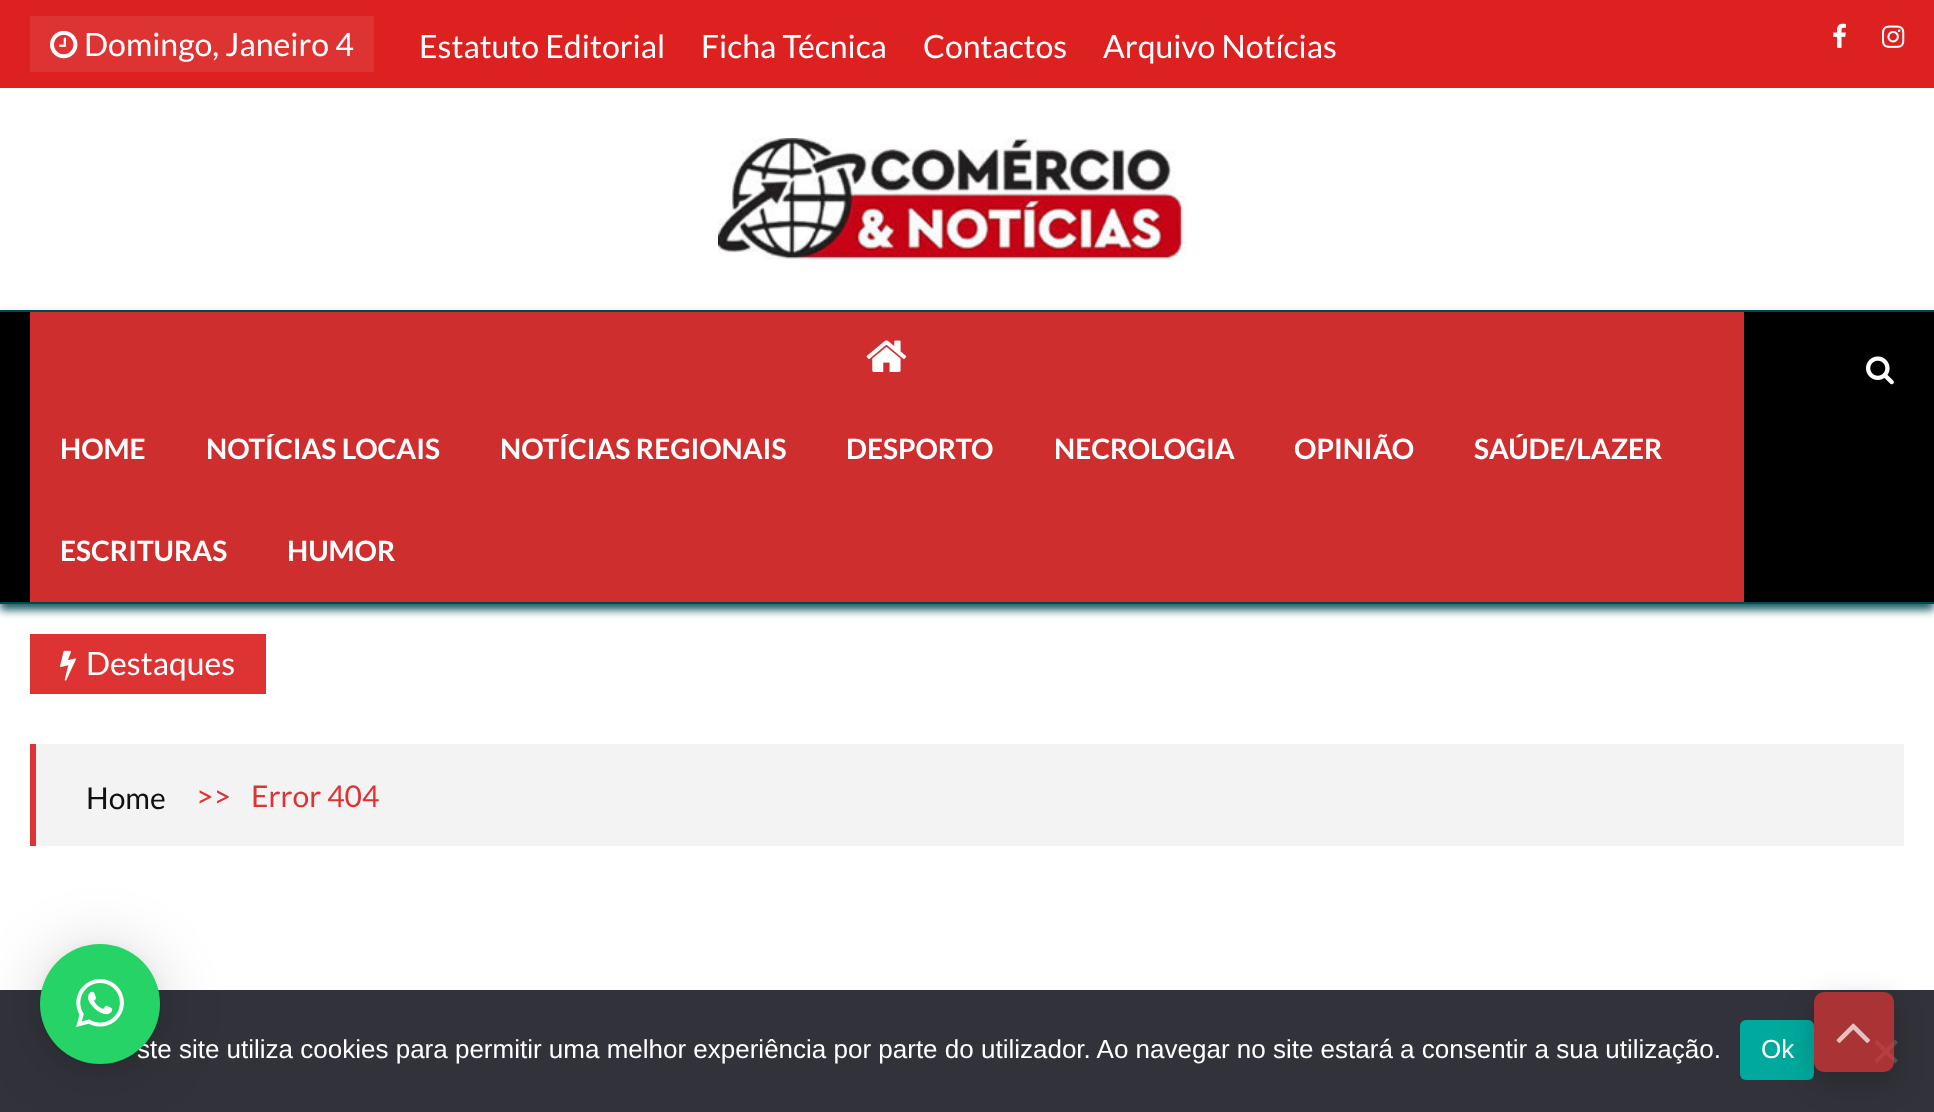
async function draw(canvas) {
  canvas.width = 1934
  canvas.height = 1112
  const ctx = canvas.getContext('2d')
  ctx.miterLimit = 4
  ctx.fontKerning = 'normal'
  async function loadImage(src) {
    const img = new Image()
    img.src = src
    await img.decode()
    return img
  }

  ctx.fillStyle = '#fff'
  ctx.fillRect(0, 0, 1934, 1112)
  ctx.fillStyle = '#dd2121'
  ctx.fillRect(0, 0, 1934, 88)
  ctx.fillStyle = '#d33'
  ctx.fillRect(30, 16, 344, 56)
  ctx.drawImage(await loadImage('image0.png'), 50, 30, 28, 29)
  ctx.font = '32px Lato'
  ctx.fillStyle = '#fff'
  ctx.fillText('Domingo, Janeiro 4', 84, 56)
  ctx.fillText('Estatuto Editorial', 419, 58)
  ctx.fillText('Ficha Técnica', 701, 58)
  ctx.fillText('Contactos', 923, 58)
  ctx.fillText('Arquivo Notícias', 1103, 58)
  ctx.drawImage(await loadImage('image1.png'), 1833, 23, 13, 25)
  ctx.drawImage(await loadImage('image2.png'), 1882, 25, 23, 23)
  ctx.drawImage(await loadImage('image3.png'), 718, 138, 469, 122)
  ctx.fillStyle = '#004951e3'
  ctx.filter = 'blur(4px)'
  ctx.beginPath()
  ctx.rect(0, 316, 1934, 294)
  ctx.fill()
  ctx.filter = 'none'
  ctx.fillStyle = '#000'
  ctx.fillRect(0, 312, 1934, 290)
  ctx.fillStyle = '#004951'
  ctx.fillRect(0, 310, 1934, 2)
  ctx.fillRect(0, 602, 1934, 2)
  ctx.drawImage(await loadImage('image4.png'), 1866, 356, 28, 29)
  ctx.fillStyle = '#cf2e2e'
  ctx.fillRect(30, 312, 1714, 290)
  ctx.drawImage(await loadImage('image5.png'), 866, 340, 41, 32)
  ctx.font = 'bold 28px Lato'
  ctx.fillStyle = '#fff'
  ctx.fillText('HOME', 60, 459)
  ctx.fillText('NOTÍCIAS LOCAIS', 206, 459)
  ctx.fillText('NOTÍCIAS REGIONAIS', 500, 459)
  ctx.fillText('DESPORTO', 846, 459)
  ctx.fillText('NECROLOGIA', 1054, 459)
  ctx.fillText('OPINIÃO', 1294, 459)
  ctx.fillText('SAÚDE/LAZER', 1474, 459)
  ctx.fillText('ESCRITURAS', 60, 561)
  ctx.fillText('HUMOR', 287, 561)
  ctx.fillStyle = '#d33'
  ctx.fillRect(30, 634, 236, 60)
  ctx.drawImage(await loadImage('image6.png'), 60, 650, 16, 31)
  ctx.font = '32px Lato'
  ctx.fillStyle = '#fff'
  ctx.fillText('Destaques', 86, 675)
  ctx.fillStyle = '#f3f3f3'
  ctx.fillRect(36, 744, 1868, 102)
  ctx.fillStyle = '#d33'
  ctx.fillRect(30, 744, 6, 102)
  ctx.font = '30px Lato'
  ctx.fillStyle = '#111'
  ctx.fillText('Home', 86, 809)
  ctx.fillStyle = '#d33'
  ctx.fillText('>>', 196, 807)
  ctx.fillText('Error 404', 251, 807)
  ctx.fillStyle = '#32323a'
  ctx.fillRect(0, 990, 1934, 122)
  ctx.fillStyle = '#00a99d'
  ctx.beginPath()
  ctx.roundRect(1740, 1020, 74, 60, 6)
  ctx.fill()
  ctx.fillStyle = '#59595d'
  ctx.beginPath()
  ctx.moveTo(1895, 1039.5)
  ctx.lineTo(1898, 1042.5)
  ctx.lineTo(1877, 1063.5)
  ctx.lineTo(1874, 1060.5)
  ctx.closePath()
  ctx.fill()
  ctx.beginPath()
  ctx.moveTo(1874, 1042.5)
  ctx.lineTo(1877, 1039.5)
  ctx.lineTo(1898, 1060.5)
  ctx.lineTo(1895, 1063.5)
  ctx.closePath()
  ctx.fill()
  ctx.save()
  ctx.beginPath()
  ctx.moveTo(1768, 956)
  ctx.lineTo(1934, 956)
  ctx.lineTo(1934, 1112)
  ctx.lineTo(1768, 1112)
  ctx.closePath()
  ctx.moveTo(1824, 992)
  ctx.lineTo(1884, 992)
  ctx.bezierCurveTo(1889.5, 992, 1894, 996.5, 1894, 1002)
  ctx.lineTo(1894, 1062)
  ctx.bezierCurveTo(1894, 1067.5, 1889.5, 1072, 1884, 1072)
  ctx.lineTo(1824, 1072)
  ctx.bezierCurveTo(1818.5, 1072, 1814, 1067.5, 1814, 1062)
  ctx.lineTo(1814, 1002)
  ctx.bezierCurveTo(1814, 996.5, 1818.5, 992, 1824, 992)
  ctx.closePath()
  ctx.clip('evenodd')
  ctx.fillStyle = '#00000036'
  ctx.filter = 'blur(15px)'
  ctx.beginPath()
  ctx.roundRect(1814, 1002, 80, 80, 10)
  ctx.fill()
  ctx.filter = 'none'
  ctx.restore()
  ctx.fillStyle = '#dd3333b3'
  ctx.beginPath()
  ctx.roundRect(1814, 992, 80, 80, 10)
  ctx.fill()
  ctx.drawImage(await loadImage('image7.png'), 1836, 1023, 34, 20)
  ctx.fillStyle = '#00000029'
  ctx.filter = 'blur(32px)'
  ctx.beginPath()
  ctx.roundRect(40, 948, 120, 120, 60)
  ctx.fill()
  ctx.filter = 'none'
  ctx.fillStyle = '#0000000f'
  ctx.filter = 'blur(6px)'
  ctx.beginPath()
  ctx.roundRect(40, 946, 120, 120, 60)
  ctx.fill()
  ctx.filter = 'none'
  ctx.font = '26px Liberation Sans'
  ctx.fillStyle = '#fff'
  ctx.fillText('ste site utiliza cookies para permitir uma melhor experiência por parte do utilizador. Ao navegar no site estará a consentir a sua utilização.', 137, 1058)
  ctx.fillStyle = '#25d366'
  ctx.beginPath()
  ctx.arc(100, 1004, 60, 0, 2 * Math.PI)
  ctx.fill()
  ctx.drawImage(await loadImage('image8.png'), 76, 979, 48, 48)
  ctx.fillStyle = '#fff'
  ctx.fillText('Ok', 1761, 1058)
}

draw(document.querySelector('canvas'))
